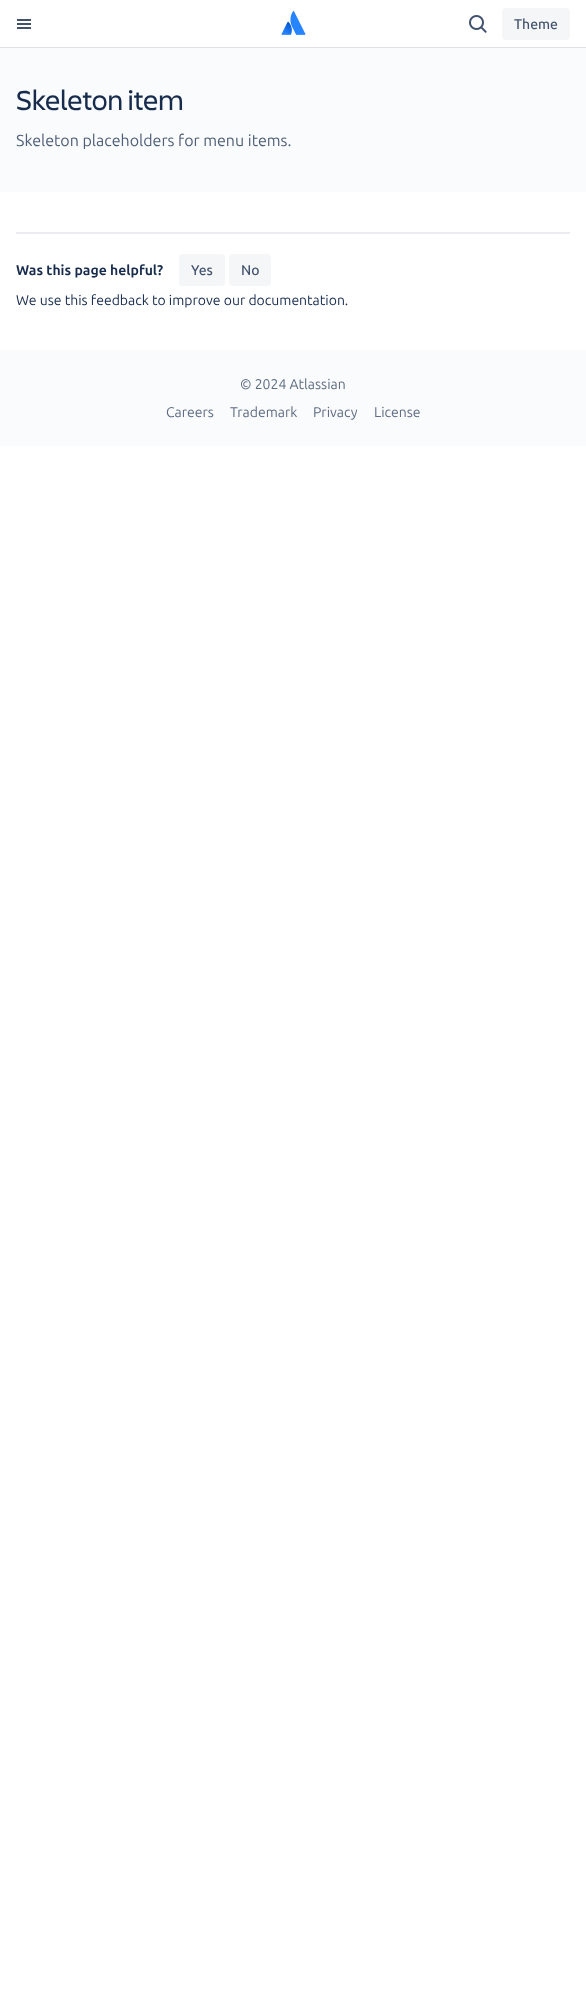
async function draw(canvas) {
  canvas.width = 586
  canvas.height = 2016
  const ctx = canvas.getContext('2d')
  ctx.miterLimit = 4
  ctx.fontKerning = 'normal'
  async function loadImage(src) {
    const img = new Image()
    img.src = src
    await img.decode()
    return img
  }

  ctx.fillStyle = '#fff'
  ctx.fillRect(0, 0, 586, 2016)
  ctx.fillStyle = '#dde0e5'
  ctx.fillRect(0, 47, 586, 1)
  ctx.drawImage(await loadImage('image0.png'), 17, 19, 14, 10)
  ctx.drawImage(await loadImage('image1.png'), 281, 11, 25, 24)
  ctx.drawImage(await loadImage('image2.png'), 469, 15, 18, 18)
  ctx.fillStyle = '#f5f6f7'
  ctx.beginPath()
  ctx.roundRect(502, 8, 68, 32, 4)
  ctx.fill()
  ctx.font = '500 14px Ubuntu'
  ctx.fillStyle = '#42526e'
  ctx.fillText('Theme', 514, 29)
  ctx.fillStyle = '#fafbfc'
  ctx.fillRect(0, 48, 586, 144)
  ctx.letterSpacing = '-0.25px'
  ctx.font = '29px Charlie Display'
  ctx.fillStyle = '#172b4d'
  ctx.fillText('Skeleton item', 16, 110)
  ctx.letterSpacing = '0px'
  ctx.font = '16px Ubuntu'
  ctx.fillStyle = '#505f79'
  ctx.fillText('Skeleton placeholders for menu items.', 16, 146)
  ctx.fillStyle = '#ebedf0'
  ctx.fillRect(16, 232, 554, 2)
  ctx.font = 'bold 14px Ubuntu'
  ctx.fillStyle = '#172b4d'
  ctx.fillText('Was this page helpful?', 16, 275)
  ctx.fillStyle = '#f5f6f7'
  ctx.beginPath()
  ctx.roundRect(179, 254, 46, 32, 4)
  ctx.fill()
  ctx.font = '500 14px Ubuntu'
  ctx.fillStyle = '#42526e'
  ctx.fillText('Yes', 191, 275)
  ctx.fillStyle = '#f5f6f7'
  ctx.beginPath()
  ctx.roundRect(229, 254, 42, 32, 4)
  ctx.fill()
  ctx.fillStyle = '#42526e'
  ctx.fillText('No', 241, 275)
  ctx.font = '14px Ubuntu'
  ctx.fillStyle = '#172b4d'
  ctx.fillText('We use this feedback to improve our documentation.', 16, 305)
  ctx.fillStyle = '#fafbfc'
  ctx.fillRect(0, 350, 586, 96)
  ctx.fillStyle = '#5e6c84'
  ctx.fillText('© 2024 Atlassian', 240, 389)
  ctx.fillText('Careers', 166, 417)
  ctx.fillText('Trademark', 230, 417)
  ctx.fillText('Privacy', 313, 417)
  ctx.fillText('License', 374, 417)
}

draw(document.querySelector('canvas'))
